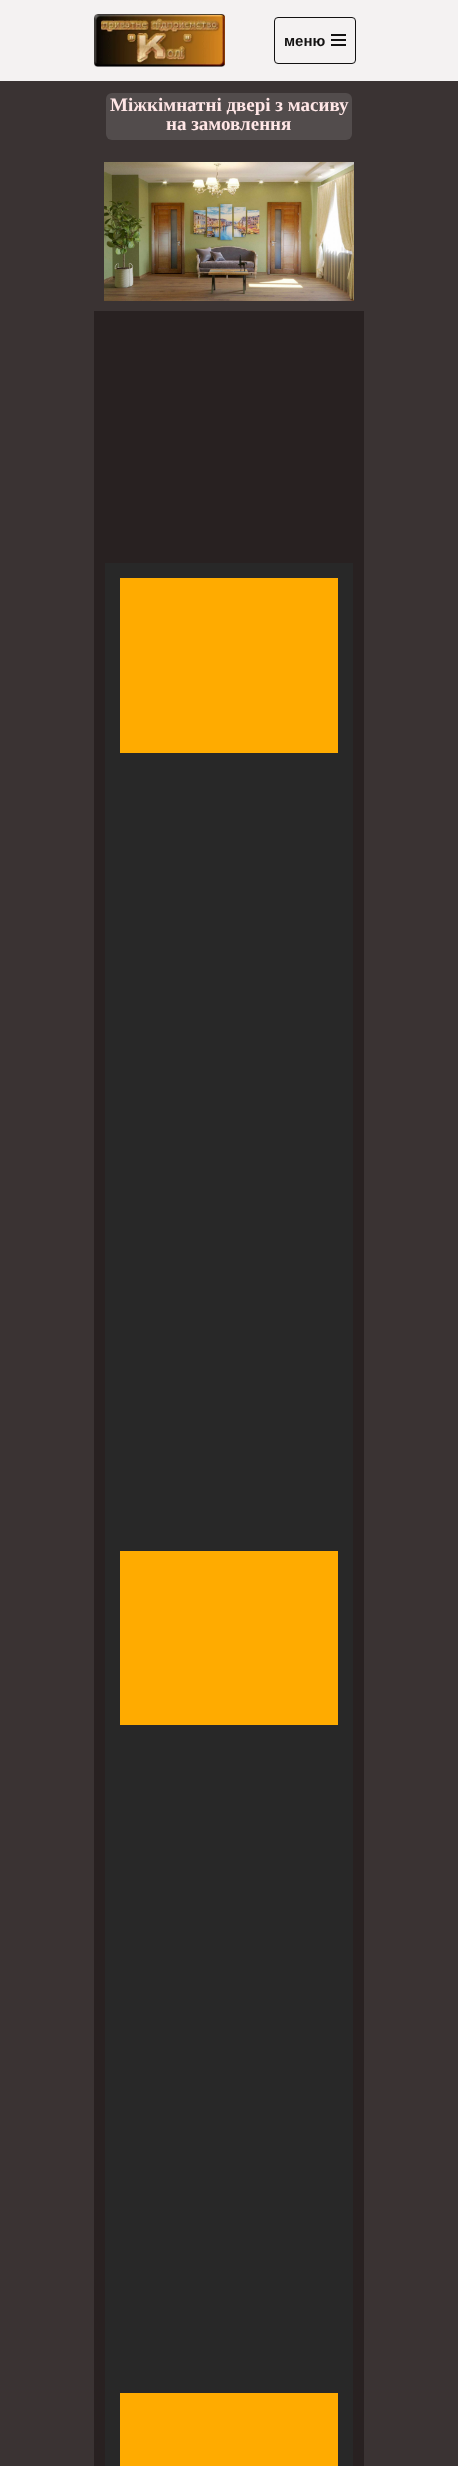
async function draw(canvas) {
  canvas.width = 458
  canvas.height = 2466
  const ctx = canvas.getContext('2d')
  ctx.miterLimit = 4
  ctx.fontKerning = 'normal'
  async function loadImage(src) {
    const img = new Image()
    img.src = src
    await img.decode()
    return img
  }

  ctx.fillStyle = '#3a3333'
  ctx.fillRect(0, 0, 458, 2466)
  ctx.fillStyle = '#f4f2f2'
  ctx.fillRect(0, 0, 458, 81)
  ctx.drawImage(await loadImage('image0.png'), 94, 14, 131, 53)
  ctx.beginPath()
  ctx.roundRect(274.5, 17.5, 81, 46, 3.5)
  ctx.strokeStyle = '#131212'
  ctx.stroke()
  ctx.font = 'bold 15px Liberation Sans'
  ctx.fillStyle = '#131212'
  ctx.fillText('меню', 284, 46)
  ctx.fillRect(331, 34, 15, 2)
  ctx.fillRect(331, 39, 15, 2)
  ctx.fillRect(331, 44, 15, 2)
  ctx.fillStyle = '#524c4c'
  ctx.beginPath()
  ctx.roundRect(106, 93, 246, 47, 6)
  ctx.fill()
  ctx.font = 'bold 19px Liberation Serif'
  ctx.fillStyle = '#ffe6e6'
  ctx.fillText('Міжкімнатні двері з масиву', 110, 111)
  ctx.fillText('на замовлення', 166, 130)
  ctx.drawImage(await loadImage('image1.png'), 104, 162, 250, 139)
  ctx.fillStyle = '#282121'
  ctx.fillRect(94, 311, 270, 2155)
  ctx.fillStyle = '#282828'
  ctx.fillRect(105, 563, 248, 1903)
  ctx.fillStyle = '#ffab00'
  ctx.fillRect(120, 578, 218, 175)
  ctx.fillRect(120, 1551, 218, 174)
  ctx.fillRect(120, 2393, 218, 73)
}

draw(document.querySelector('canvas'))
